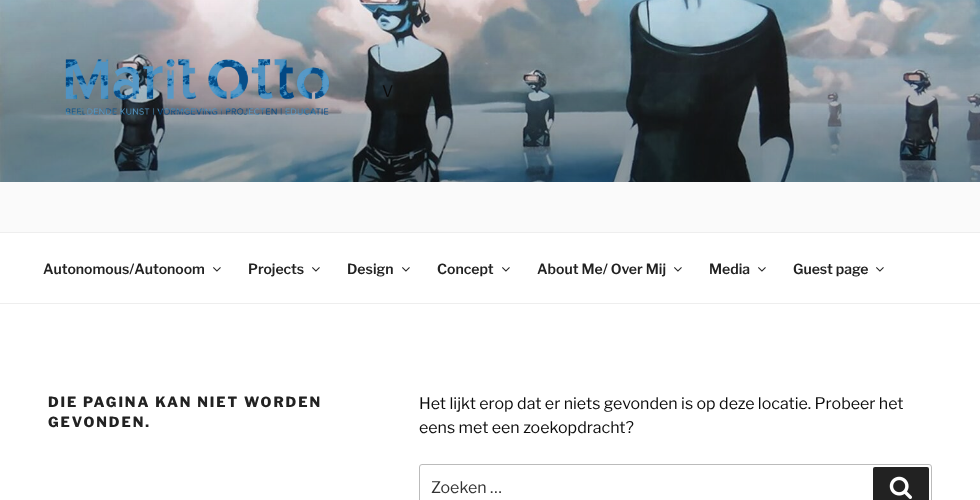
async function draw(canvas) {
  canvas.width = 980
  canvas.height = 500
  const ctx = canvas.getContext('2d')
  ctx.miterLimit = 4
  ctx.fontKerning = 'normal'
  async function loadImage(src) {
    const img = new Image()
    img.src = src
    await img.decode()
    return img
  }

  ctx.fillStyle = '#fff'
  ctx.fillRect(0, 0, 980, 500)
  ctx.fillStyle = '#fafafa'
  ctx.fillRect(0, 182, 980, 50)
  ctx.drawImage(await loadImage('image0.png'), 0, 0, 980, 182)
  ctx.drawImage(await loadImage('image1.png'), 65, 59, 264, 56)
  ctx.font = '100 16px "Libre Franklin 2"'
  ctx.fillStyle = '#0c0c0c'
  ctx.fillText('V', 382, 97)
  ctx.fillStyle = '#eee'
  ctx.fillRect(0, 232, 980, 1)
  ctx.fillRect(0, 303, 980, 1)
  ctx.font = '100 14px "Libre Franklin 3"'
  ctx.fillStyle = '#222'
  ctx.fillText('Autonomous/Autonoom', 43, 274)
  ctx.drawImage(await loadImage('image2.png'), 213, 267, 8, 5)
  ctx.fillText('Projects', 248, 274)
  ctx.drawImage(await loadImage('image2.png'), 312, 267, 8, 5)
  ctx.fillText('Design', 347, 274)
  ctx.drawImage(await loadImage('image2.png'), 402, 267, 8, 5)
  ctx.fillText('Concept', 437, 274)
  ctx.drawImage(await loadImage('image2.png'), 502, 267, 8, 5)
  ctx.fillText('About Me/ Over Mij', 537, 274)
  ctx.drawImage(await loadImage('image2.png'), 674, 267, 8, 5)
  ctx.fillText('Media', 709, 274)
  ctx.drawImage(await loadImage('image2.png'), 758, 267, 8, 5)
  ctx.fillText('Guest page', 793, 274)
  ctx.drawImage(await loadImage('image2.png'), 876, 267, 8, 5)
  ctx.letterSpacing = '1.95px'
  ctx.font = '100 14px Libre Franklin'
  ctx.fillText('DIE PAGINA KAN NIET WORDEN', 48, 407)
  ctx.fillText('GEVONDEN.', 48, 427)
  ctx.letterSpacing = '0px'
  ctx.font = '100 16px "Libre Franklin 2"'
  ctx.fillStyle = '#0c0c0c'
  ctx.fillText('Het lijkt erop dat er niets gevonden is op deze locatie. Probeer het', 419, 409)
  ctx.fillText('eens met een zoekopdracht?', 419, 433)
  ctx.beginPath()
  ctx.roundRect(419.5, 464.5, 512, 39, 2.5)
  ctx.strokeStyle = '#bbb'
  ctx.stroke()
  ctx.fillStyle = '#333'
  ctx.fillText('Zoeken …', 431, 493)
  ctx.fillStyle = '#222'
  ctx.beginPath()
  ctx.roundRect(873, 467, 56, 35, 2)
  ctx.fill()
  ctx.drawImage(await loadImage('image3.png'), 889, 476, 23, 23)
}

draw(document.querySelector('canvas'))
